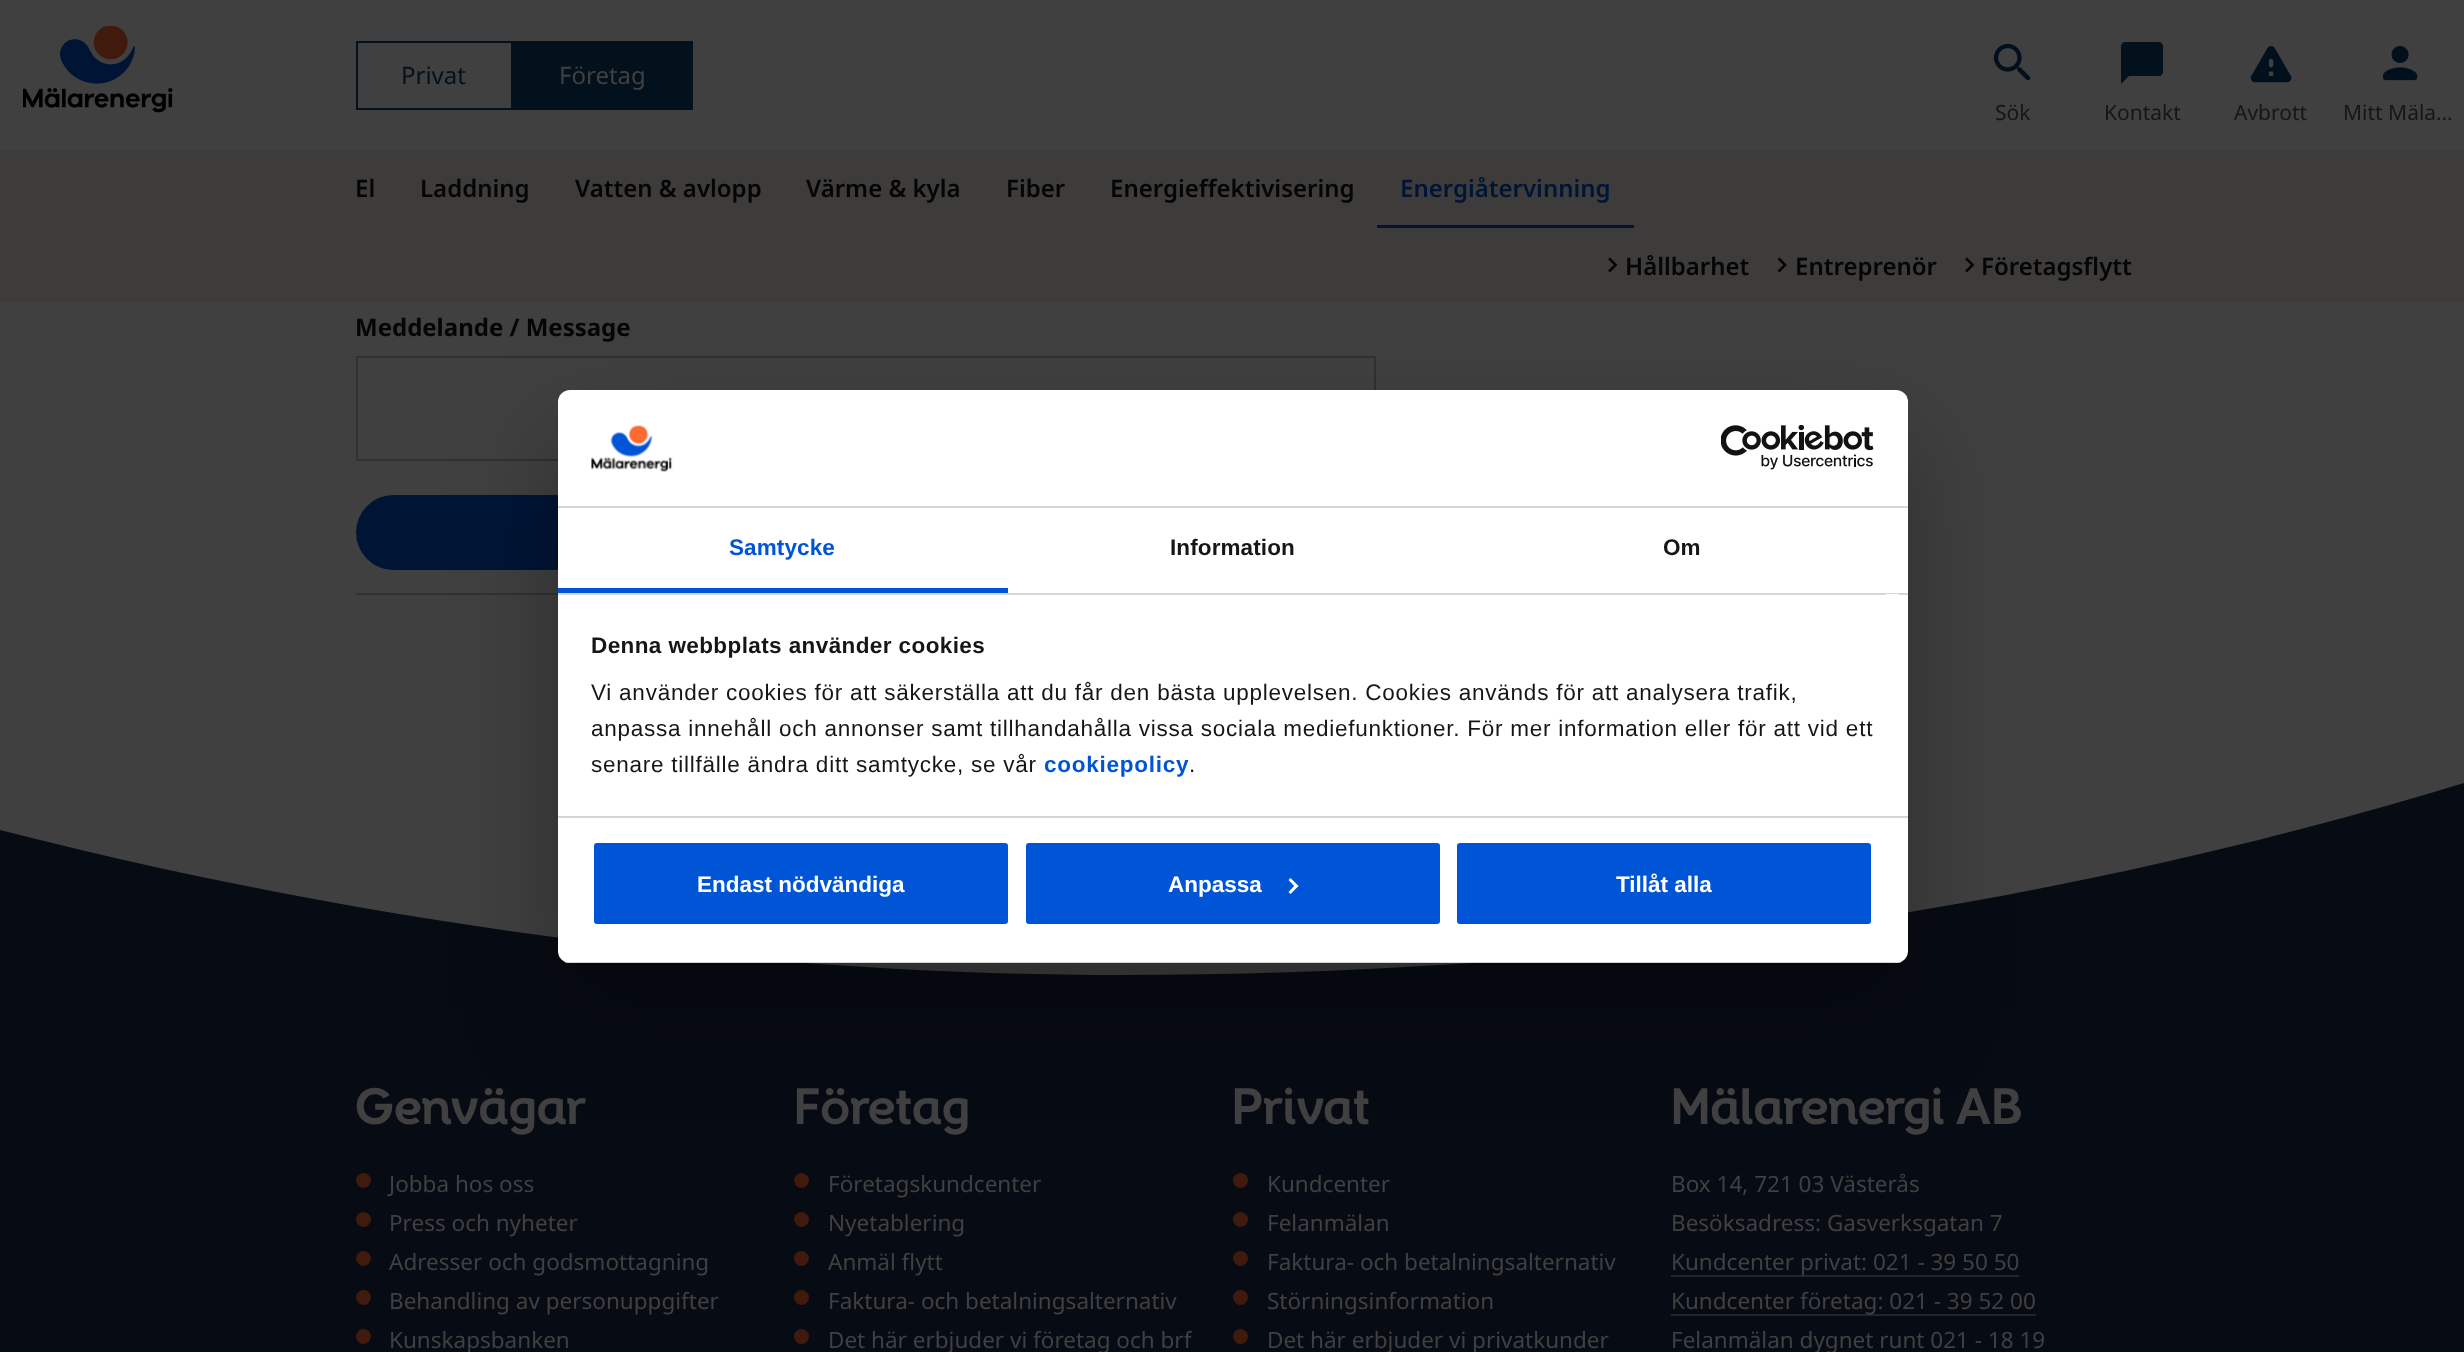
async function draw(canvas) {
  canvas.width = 2464
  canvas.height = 1352
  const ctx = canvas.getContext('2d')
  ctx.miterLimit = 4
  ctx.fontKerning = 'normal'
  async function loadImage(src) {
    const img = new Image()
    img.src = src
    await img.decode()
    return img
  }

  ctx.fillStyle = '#404040'
  ctx.fillRect(0, 0, 2464, 1352)
  ctx.drawImage(await loadImage('image0.png'), 23, 26, 150, 87)
  ctx.strokeStyle = '#03111d'
  ctx.lineWidth = 2
  ctx.strokeRect(357, 42, 155, 67)
  ctx.font = '24px Noto Sans'
  ctx.fillStyle = '#03111d'
  ctx.fillText('Privat', 401, 84)
  ctx.strokeRect(514, 42, 178, 67)
  ctx.fillRect(515, 43, 176, 65)
  ctx.fillStyle = '#404040'
  ctx.fillText('Företag', 559, 84)
  ctx.drawImage(await loadImage('image1.png'), 1993, 43, 38, 38)
  ctx.font = '21px Noto Sans'
  ctx.fillStyle = '#161616'
  ctx.fillText('Sök', 1995, 120)
  ctx.fillStyle = '#03111d'
  ctx.beginPath()
  ctx.moveTo(2159, 42)
  ctx.lineTo(2125, 42)
  ctx.bezierCurveTo(2123, 42, 2121, 44, 2121, 46)
  ctx.lineTo(2121, 84)
  ctx.lineTo(2129, 76)
  ctx.lineTo(2159, 76)
  ctx.bezierCurveTo(2161, 76, 2163, 74, 2163, 72)
  ctx.lineTo(2163, 46)
  ctx.bezierCurveTo(2163, 44, 2161, 42, 2159, 42)
  ctx.closePath()
  ctx.fill()
  ctx.fillStyle = '#161616'
  ctx.fillText('Kontakt', 2104, 120)
  ctx.drawImage(await loadImage('image2.png'), 2250, 46, 42, 37)
  ctx.fillText('Avbrott', 2234, 120)
  ctx.drawImage(await loadImage('image3.png'), 2383, 46, 35, 35)
  ctx.fillText('Mitt Mäla…', 2343, 120)
  ctx.fillStyle = '#3d3c3b'
  ctx.fillRect(0, 150, 2464, 153)
  ctx.font = '600 24px Noto Sans'
  ctx.fillStyle = '#050505'
  ctx.fillText('El', 355, 197)
  ctx.fillText('Laddning', 420, 197)
  ctx.fillText('Vatten & avlopp', 575, 197)
  ctx.fillText('Värme & kyla', 806, 197)
  ctx.fillText('Fiber', 1006, 197)
  ctx.fillText('Energieffektivisering', 1110, 197)
  ctx.fillStyle = '#001536'
  ctx.fillRect(1377, 225, 257, 3)
  ctx.fillText('Energiåtervinning', 1400, 197)
  ctx.drawImage(await loadImage('image4.png'), 1608, 257, 10, 16)
  ctx.fillStyle = '#050505'
  ctx.fillText('Hållbarhet', 1625, 275)
  ctx.drawImage(await loadImage('image5.png'), 1777, 257, 10, 16)
  ctx.fillText('Entreprenör', 1795, 275)
  ctx.drawImage(await loadImage('image4.png'), 1965, 257, 10, 16)
  ctx.fillText('Företagsflytt', 1981, 275)
  ctx.font = 'bold 24px Noto Sans'
  ctx.fillText('Meddelande / Message', 355, 336)
  ctx.strokeStyle = '#303230'
  ctx.strokeRect(357, 357, 1018, 103)
  ctx.fillStyle = '#001536'
  ctx.beginPath()
  ctx.roundRect(356, 495, 1020, 75, 37.5)
  ctx.fill()
  ctx.fillStyle = '#303230'
  ctx.fillRect(356, 593, 202, 2)
  ctx.fillStyle = '#070b13'
  ctx.beginPath()
  ctx.moveTo(0, 830)
  ctx.bezierCurveTo(441, 943, 834, 975, 1119, 975)
  ctx.bezierCurveTo(1570, 975, 2020, 918, 2464, 783)
  ctx.lineTo(2464, 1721)
  ctx.lineTo(0, 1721)
  ctx.closePath()
  ctx.fill('evenodd')
  ctx.fillStyle = '#0000004d'
  ctx.filter = 'blur(51px)'
  ctx.beginPath()
  ctx.roundRect(558, 438, 1350, 573, 12)
  ctx.fill()
  ctx.filter = 'none'
  ctx.fillStyle = '#fff'
  ctx.beginPath()
  ctx.roundRect(558, 390, 1350, 573, 12)
  ctx.fill()
  ctx.fillStyle = '#d6d6d6'
  ctx.fillRect(558, 506, 1350, 2)
  ctx.drawImage(await loadImage('image6.png'), 591, 425, 82, 47)
  ctx.drawImage(await loadImage('image7.png'), 1721, 425, 153, 45)
  ctx.fillRect(558, 593, 1350, 2)
  ctx.fillStyle = '#0055d7'
  ctx.fillRect(558, 588, 450, 5)
  ctx.letterSpacing = '0.1px'
  ctx.font = 'bold 22.5px Liberation Sans'
  ctx.fillText('Samtycke', 729, 555)
  ctx.fillStyle = '#161616'
  ctx.fillText('Information', 1170, 555)
  ctx.fillText('Om', 1663, 555)
  ctx.fillStyle = '#d6d6d6'
  ctx.fillRect(558, 816, 1350, 2)
  ctx.fillStyle = '#fff'
  ctx.fillRect(1886, 594, 13, 1)
  ctx.letterSpacing = '0.4px'
  ctx.fillStyle = '#161616'
  ctx.fillText('Denna webbplats använder cookies', 591, 653)
  ctx.letterSpacing = '0.75px'
  ctx.font = '22.5px Liberation Sans'
  ctx.fillText('Vi använder cookies för att säkerställa att du får den bästa upplevelsen. Cookies används för att analysera trafik,', 591, 700)
  ctx.fillText('anpassa innehåll och annonser samt tillhandahålla vissa sociala mediefunktioner. För mer information eller för att vid ett', 591, 736)
  ctx.fillText('senare tillfälle ändra ditt samtycke, se vår', 591, 772)
  ctx.font = 'bold 22.5px Liberation Sans'
  ctx.fillStyle = '#0055d7'
  ctx.fillText('cookiepolicy', 1044, 772)
  ctx.font = '22.5px Liberation Sans'
  ctx.fillStyle = '#161616'
  ctx.fillText('.', 1189, 772)
  ctx.save()
  ctx.beginPath()
  ctx.roundRect(558, 390, 1350, 573, 12)
  ctx.clip()
  ctx.fillStyle = '#d6d6d6'
  ctx.fillRect(558, 962, 1350, 1)
  ctx.restore()
  ctx.fillStyle = '#0055d7'
  ctx.beginPath()
  ctx.roundRect(592.5, 841.5, 417, 84, 4.5)
  ctx.fill()
  ctx.strokeStyle = '#fff'
  ctx.lineWidth = 3
  ctx.stroke()
  ctx.letterSpacing = '0px'
  ctx.font = 'bold 22.5px Liberation Sans'
  ctx.fillStyle = '#fff'
  ctx.fillText('Endast nödvändiga', 697, 892)
  ctx.fillStyle = '#0055d7'
  ctx.beginPath()
  ctx.roundRect(1024.5, 841.5, 417, 84, 4.5)
  ctx.fill()
  ctx.stroke()
  ctx.fillStyle = '#fff'
  ctx.fillText('Anpassa', 1168, 892)
  ctx.beginPath()
  ctx.moveTo(1290.5, 878)
  ctx.lineTo(1298.5, 886)
  ctx.lineTo(1296, 888)
  ctx.lineTo(1288.5, 880)
  ctx.closePath()
  ctx.fill()
  ctx.beginPath()
  ctx.moveTo(1296, 884)
  ctx.lineTo(1298.5, 886)
  ctx.lineTo(1290.5, 894)
  ctx.lineTo(1288.5, 892)
  ctx.closePath()
  ctx.fill()
  ctx.fillStyle = '#0055d7'
  ctx.beginPath()
  ctx.roundRect(1455.5, 841.5, 417, 84, 4.5)
  ctx.fill()
  ctx.stroke()
  ctx.fillStyle = '#fff'
  ctx.fillText('Tillåt alla', 1616, 892)
  ctx.font = 'bold 51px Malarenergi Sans'
  ctx.fillStyle = '#404040'
  ctx.fillText('Genvägar', 355, 1124)
  ctx.fillStyle = '#401a0d'
  ctx.beginPath()
  ctx.arc(363.5, 1180.5, 7.5, 0, 2 * Math.PI)
  ctx.fill()
  ctx.font = '22.5px Noto Sans'
  ctx.fillStyle = '#404040'
  ctx.fillText('Jobba hos oss', 389, 1192)
  ctx.fillStyle = '#401a0d'
  ctx.beginPath()
  ctx.arc(363.5, 1219.5, 7.5, 0, 2 * Math.PI)
  ctx.fill()
  ctx.fillStyle = '#404040'
  ctx.fillText('Press och nyheter', 389, 1231)
  ctx.fillStyle = '#401a0d'
  ctx.beginPath()
  ctx.arc(363.5, 1258.5, 7.5, 0, 2 * Math.PI)
  ctx.fill()
  ctx.fillStyle = '#404040'
  ctx.fillText('Adresser och godsmottagning', 389, 1270)
  ctx.fillStyle = '#401a0d'
  ctx.beginPath()
  ctx.arc(363.5, 1297.5, 7.5, 0, 2 * Math.PI)
  ctx.fill()
  ctx.fillStyle = '#404040'
  ctx.fillText('Behandling av personuppgifter', 389, 1309)
  ctx.fillStyle = '#401a0d'
  ctx.beginPath()
  ctx.arc(363.5, 1336.5, 7.5, 0, 2 * Math.PI)
  ctx.fill()
  ctx.fillStyle = '#404040'
  ctx.fillText('Kunskapsbanken', 389, 1348)
  ctx.font = 'bold 51px Malarenergi Sans'
  ctx.fillText('Företag', 794, 1124)
  ctx.fillStyle = '#401a0d'
  ctx.beginPath()
  ctx.arc(801.5, 1180.5, 7.5, 0, 2 * Math.PI)
  ctx.fill()
  ctx.font = '22.5px Noto Sans'
  ctx.fillStyle = '#404040'
  ctx.fillText('Företagskundcenter', 828, 1192)
  ctx.fillStyle = '#401a0d'
  ctx.beginPath()
  ctx.arc(801.5, 1219.5, 7.5, 0, 2 * Math.PI)
  ctx.fill()
  ctx.fillStyle = '#404040'
  ctx.fillText('Nyetablering', 828, 1231)
  ctx.fillStyle = '#401a0d'
  ctx.beginPath()
  ctx.arc(801.5, 1258.5, 7.5, 0, 2 * Math.PI)
  ctx.fill()
  ctx.fillStyle = '#404040'
  ctx.fillText('Anmäl flytt', 828, 1270)
  ctx.fillStyle = '#401a0d'
  ctx.beginPath()
  ctx.arc(801.5, 1297.5, 7.5, 0, 2 * Math.PI)
  ctx.fill()
  ctx.fillStyle = '#404040'
  ctx.fillText('Faktura- och betalningsalternativ', 828, 1309)
  ctx.fillStyle = '#401a0d'
  ctx.beginPath()
  ctx.arc(801.5, 1336.5, 7.5, 0, 2 * Math.PI)
  ctx.fill()
  ctx.fillStyle = '#404040'
  ctx.fillText('Det här erbjuder vi företag och brf', 828, 1348)
  ctx.font = 'bold 51px Malarenergi Sans'
  ctx.fillText('Privat', 1232, 1124)
  ctx.fillStyle = '#401a0d'
  ctx.beginPath()
  ctx.arc(1240.5, 1180.5, 7.5, 0, 2 * Math.PI)
  ctx.fill()
  ctx.font = '22.5px Noto Sans'
  ctx.fillStyle = '#404040'
  ctx.fillText('Kundcenter', 1267, 1192)
  ctx.fillStyle = '#401a0d'
  ctx.beginPath()
  ctx.arc(1240.5, 1219.5, 7.5, 0, 2 * Math.PI)
  ctx.fill()
  ctx.fillStyle = '#404040'
  ctx.fillText('Felanmälan', 1267, 1231)
  ctx.fillStyle = '#401a0d'
  ctx.beginPath()
  ctx.arc(1240.5, 1258.5, 7.5, 0, 2 * Math.PI)
  ctx.fill()
  ctx.fillStyle = '#404040'
  ctx.fillText('Faktura- och betalningsalternativ', 1267, 1270)
  ctx.fillStyle = '#401a0d'
  ctx.beginPath()
  ctx.arc(1240.5, 1297.5, 7.5, 0, 2 * Math.PI)
  ctx.fill()
  ctx.fillStyle = '#404040'
  ctx.fillText('Störningsinformation', 1267, 1309)
  ctx.fillStyle = '#401a0d'
  ctx.beginPath()
  ctx.arc(1240.5, 1336.5, 7.5, 0, 2 * Math.PI)
  ctx.fill()
  ctx.fillStyle = '#404040'
  ctx.fillText('Det här erbjuder vi privatkunder', 1267, 1348)
  ctx.font = 'bold 51px Malarenergi Sans'
  ctx.fillText('Mälarenergi AB', 1671, 1124)
  ctx.font = '22.5px Noto Sans'
  ctx.fillText('Box 14, 721 03 Västerås', 1671, 1192)
  ctx.fillText('Besöksadress: Gasverksgatan 7', 1671, 1231)
  ctx.fillStyle = '#23252a'
  ctx.fillRect(1671, 1275, 348, 2)
  ctx.fillStyle = '#404040'
  ctx.fillText('Kundcenter privat: 021 - 39 50 50', 1671, 1270)
  ctx.fillStyle = '#23252a'
  ctx.fillRect(1671, 1314, 365, 2)
  ctx.fillStyle = '#404040'
  ctx.fillText('Kundcenter företag: 021 - 39 52 00', 1671, 1309)
  ctx.fillText('Felanmälan dygnet runt 021 - 18 19', 1671, 1348)
}

draw(document.querySelector('canvas'))
